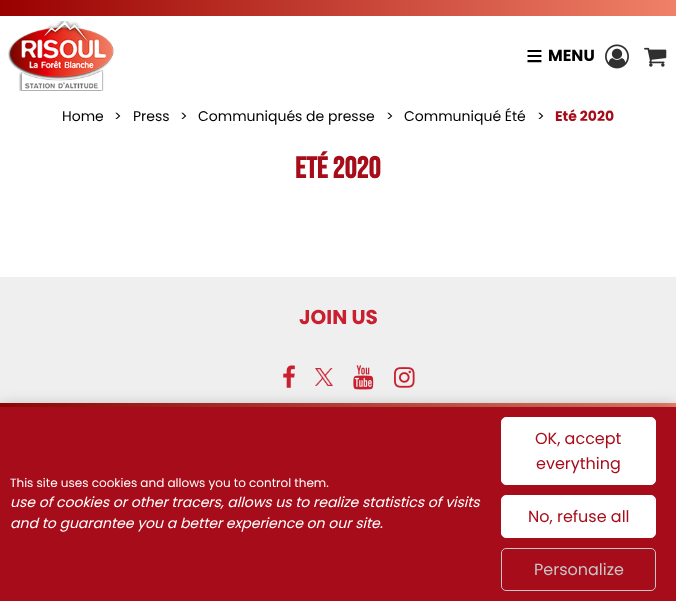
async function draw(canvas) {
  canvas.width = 676
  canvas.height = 601
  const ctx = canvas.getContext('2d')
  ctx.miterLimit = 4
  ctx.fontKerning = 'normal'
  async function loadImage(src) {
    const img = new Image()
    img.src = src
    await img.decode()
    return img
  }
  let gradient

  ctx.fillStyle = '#fff'
  ctx.fillRect(0, 0, 676, 601)
  gradient = ctx.createLinearGradient(0, 8, 676, 8)
  gradient.addColorStop(0, '#900')
  gradient.addColorStop(1, '#f08168')
  ctx.fillStyle = gradient
  ctx.fillRect(0, 0, 676, 16)
  ctx.drawImage(await loadImage('image0.png'), 8, 21, 106, 70)
  ctx.font = 'bold 30px Liberation Serif'
  ctx.fillStyle = '#000'
  ctx.fillText('≡', 526, 66)
  ctx.font = 'bold 16px Poppins'
  ctx.fillText('MENU', 548, 61)
  ctx.drawImage(await loadImage('image1.png'), 605, 44, 24, 25)
  ctx.drawImage(await loadImage('image2.png'), 644, 47, 23, 20)
  ctx.font = '14px Poppins'
  ctx.fillText('Home', 62, 121)
  ctx.fillText('>', 114, 121)
  ctx.fillText('Press', 133, 121)
  ctx.fillText('>', 180, 121)
  ctx.fillText('Communiqués de presse', 198, 121)
  ctx.fillText('>', 386, 121)
  ctx.fillText('Communiqué Été', 404, 121)
  ctx.fillText('>', 537, 121)
  ctx.font = 'bold 14px Poppins'
  ctx.fillStyle = '#a70c1a'
  ctx.fillText('Eté 2020', 555, 121)
  ctx.font = 'bold 30px Bebas Neue'
  ctx.fillText('Eté 2020', 295, 178)
  ctx.fillStyle = '#efefef'
  ctx.fillRect(0, 277, 676, 126)
  ctx.font = 'bold 20px Poppins'
  ctx.fillStyle = '#c8202f'
  ctx.fillText('JOIN US', 299, 324)
  ctx.drawImage(await loadImage('image3.png'), 283, 365, 12, 23)
  ctx.drawImage(await loadImage('image4.png'), 315, 368, 18, 18)
  ctx.drawImage(await loadImage('image5.png'), 353, 365, 21, 25)
  ctx.drawImage(await loadImage('image6.png'), 394, 367, 21, 21)
  gradient = ctx.createLinearGradient(0, 467, 676, 467)
  gradient.addColorStop(0, '#900')
  gradient.addColorStop(1, '#f08168')
  ctx.fillStyle = gradient
  ctx.fillRect(0, 403, 676, 4)
  ctx.fillStyle = '#3333335c'
  ctx.filter = 'blur(8px)'
  ctx.beginPath()
  ctx.rect(0, 407, 676, 194)
  ctx.fill()
  ctx.filter = 'none'
  ctx.fillStyle = '#a70c1a'
  ctx.fillRect(0, 407, 676, 194)
  ctx.font = '12px Poppins'
  ctx.fillStyle = '#fff'
  ctx.fillText('This site uses cookies and allows you to control them.', 10, 487)
  ctx.font = 'italic 14px Poppins'
  ctx.fillText('use of cookies or other tracers, allows us to realize statistics of visits', 10, 507)
  ctx.fillText('and to guarantee you a better experience on our site.', 10, 528)
  ctx.beginPath()
  ctx.roundRect(501.5, 417.5, 154, 67, 4.5)
  ctx.fill()
  ctx.strokeStyle = '#fff'
  ctx.stroke()
  ctx.font = '16px Poppins'
  ctx.fillStyle = '#a70c1a'
  ctx.fillText('OK, accept', 535, 444)
  ctx.fillText('everything', 536, 469)
  ctx.fillStyle = '#fff'
  ctx.beginPath()
  ctx.roundRect(501.5, 495.5, 154, 42, 4.5)
  ctx.fill()
  ctx.stroke()
  ctx.fillStyle = '#a70c1a'
  ctx.fillText('No, refuse all', 528, 522)
  ctx.beginPath()
  ctx.roundRect(501.5, 548.5, 154, 42, 4.5)
  ctx.strokeStyle = '#c6c6c6'
  ctx.stroke()
  ctx.fillStyle = '#c6c6c6'
  ctx.fillText('Personalize', 534, 575)
}

draw(document.querySelector('canvas'))
